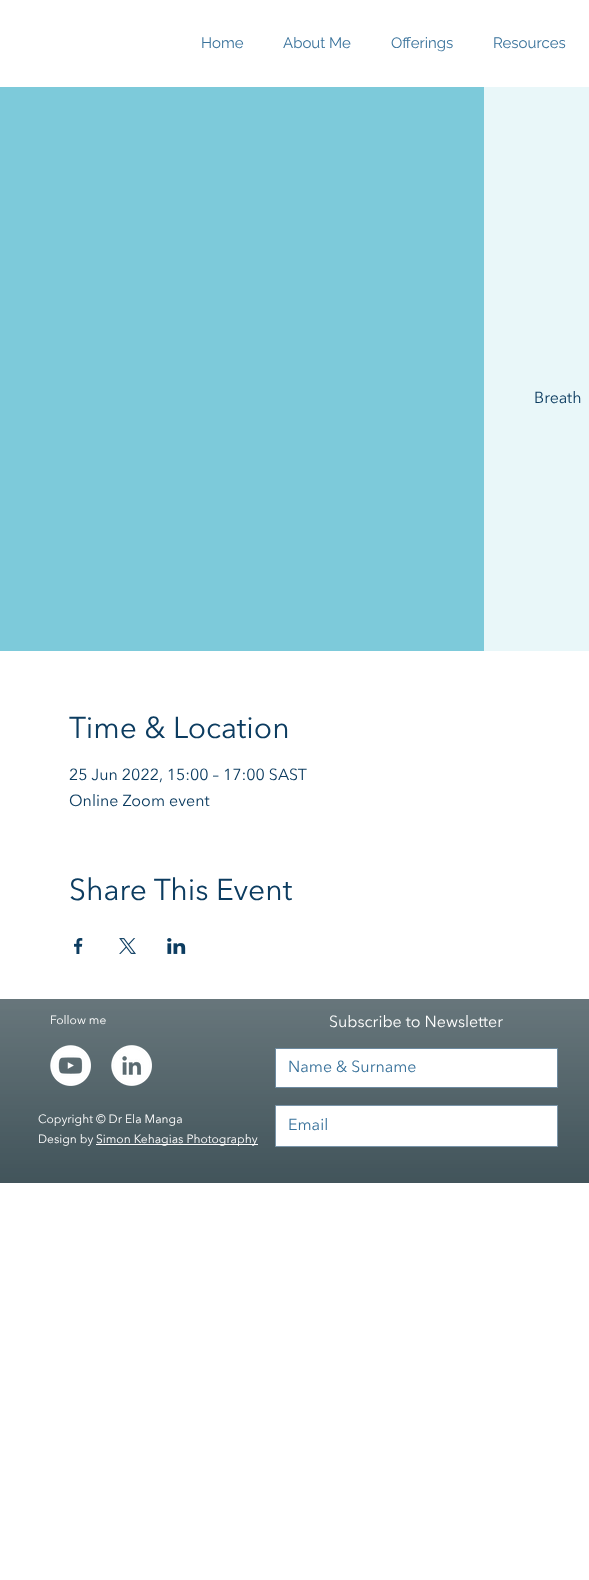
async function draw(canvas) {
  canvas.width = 589
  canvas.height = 1580
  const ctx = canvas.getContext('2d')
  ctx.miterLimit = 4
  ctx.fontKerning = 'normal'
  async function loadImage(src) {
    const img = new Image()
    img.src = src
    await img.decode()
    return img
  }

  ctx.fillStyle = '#fff'
  ctx.fillRect(0, 0, 589, 1580)
  ctx.font = '15px Raleway'
  ctx.fillStyle = '#39729b'
  ctx.fillText('Home', 201, 48)
  ctx.fillText('About Me', 283, 48)
  ctx.fillText('Offerings', 391, 48)
  ctx.fillText('Resources', 493, 48)
  ctx.fillStyle = '#7dcada'
  ctx.fillRect(0, 87, 484, 564)
  ctx.fillStyle = '#e9f7f9'
  ctx.fillRect(484, 87, 105, 564)
  ctx.font = '16px Avenir Next'
  ctx.fillStyle = '#0c3c60'
  ctx.fillText('Breath', 534, 403)
  ctx.font = '30px Avenir Next'
  ctx.fillText('Time & Location', 69, 738)
  ctx.font = '16px Avenir Next'
  ctx.fillText('25 Jun 2022, 15:00 – 17:00 SAST', 69, 780)
  ctx.fillText('Online Zoom event', 69, 806)
  ctx.font = '30px Avenir Next'
  ctx.fillText('Share This Event', 69, 900)
  ctx.drawImage(await loadImage('image0.png'), 74, 938, 9, 16)
  ctx.drawImage(await loadImage('image1.png'), 119, 938, 17, 16)
  ctx.drawImage(await loadImage('image2.png'), 167, 938, 19, 16)
  ctx.fillStyle = '#33474e'
  ctx.fillRect(0, 999, 589, 184)
  ctx.drawImage(await loadImage('image3.png'), 0, 999, 589, 184)
  ctx.font = '12px Avenir Next'
  ctx.fillStyle = '#fff'
  ctx.fillText('Follow me', 50, 1024)
  ctx.font = '16px Avenir Next'
  ctx.fillText('Subscribe to Newsletter', 329, 1027)
  ctx.beginPath()
  ctx.rect(275.5, 1048.5, 282, 39)
  ctx.fill()
  ctx.strokeStyle = '#6d8aa0'
  ctx.stroke()
  ctx.fillStyle = '#39729b'
  ctx.fillText('Name & Surname', 288, 1072)
  ctx.fillStyle = '#fff'
  ctx.beginPath()
  ctx.rect(275.5, 1105.5, 282, 41)
  ctx.fill()
  ctx.strokeStyle = '#7994a8'
  ctx.stroke()
  ctx.fillStyle = '#39729b'
  ctx.fillText('Email', 288, 1130)
  ctx.drawImage(await loadImage('image4.png'), 50, 1045, 41, 41)
  ctx.drawImage(await loadImage('image5.png'), 111, 1045, 41, 41)
  ctx.font = '12px Avenir Next'
  ctx.fillStyle = '#fff'
  ctx.fillText('Copyright © Dr Ela Manga', 38, 1123)
  ctx.fillText('Design by', 38, 1143)
  ctx.fillRect(96, 1144, 162, 1)
  ctx.fillText('Simon Kehagias Photography', 96, 1143)
}

draw(document.querySelector('canvas'))
